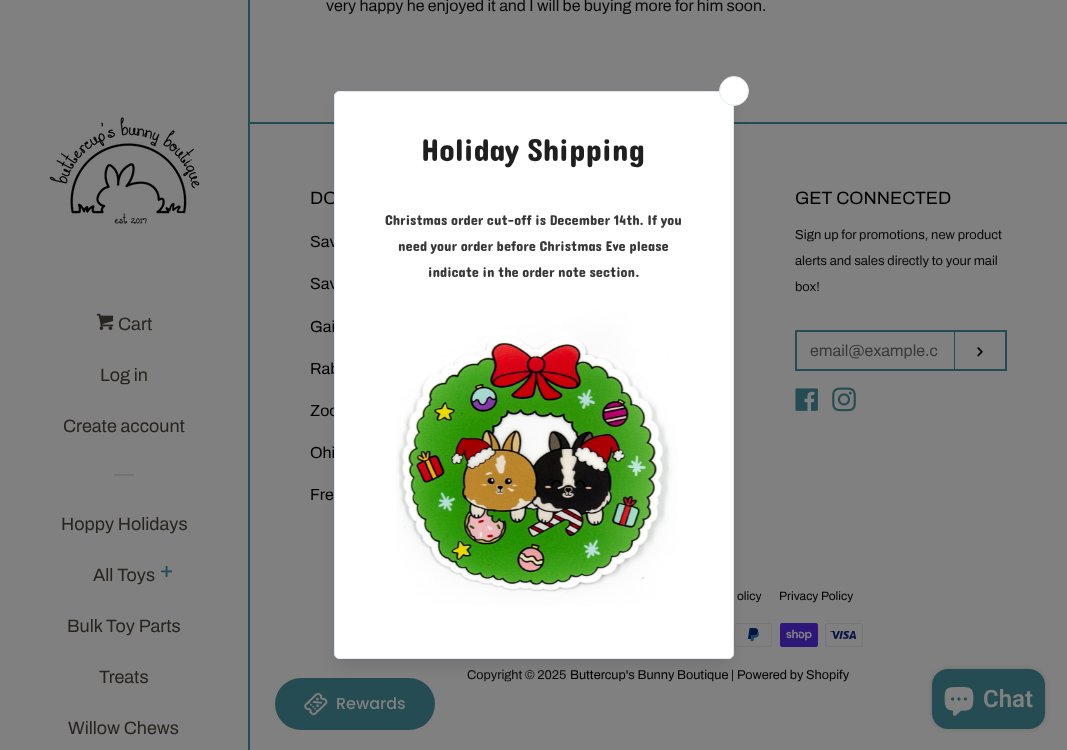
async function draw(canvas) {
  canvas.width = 1067
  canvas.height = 750
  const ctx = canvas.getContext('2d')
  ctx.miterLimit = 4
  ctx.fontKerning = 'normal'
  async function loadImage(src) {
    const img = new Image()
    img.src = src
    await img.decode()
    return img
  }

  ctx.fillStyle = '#808080'
  ctx.fillRect(0, 0, 1067, 750)
  ctx.font = '16px Archivo'
  ctx.fillStyle = '#090909'
  ctx.fillText('very happy he enjoyed it and I will be buying more for him soon.', 326, 11)
  ctx.fillStyle = '#254c53'
  ctx.fillRect(250, 122, 817, 2)
  ctx.font = '18px Archivo'
  ctx.fillStyle = '#000'
  ctx.fillText('DO', 310, 204)
  ctx.font = '16px Archivo'
  ctx.fillText('Sav', 310, 247)
  ctx.fillText('Sav', 310, 289)
  ctx.fillText('Gai', 310, 332)
  ctx.fillText('Rab', 310, 374)
  ctx.fillText('Zoo', 310, 416)
  ctx.fillText('Ohi', 310, 458)
  ctx.fillText('Fre', 310, 500)
  ctx.font = '18px Archivo'
  ctx.fillText('GET CONNECTED', 795, 204)
  ctx.font = '13px Archivo'
  ctx.fillStyle = '#090909'
  ctx.fillText('Sign up for promotions, new product', 795, 239)
  ctx.fillText('alerts and sales directly to your mail', 795, 265)
  ctx.fillText('box!', 795, 291)
  ctx.strokeStyle = '#254c53'
  ctx.lineWidth = 2
  ctx.strokeRect(796, 331, 210, 39)
  ctx.fillStyle = '#254c53'
  ctx.fillRect(954, 332, 1, 37)
  ctx.font = '16px Archivo'
  ctx.fillStyle = '#383838'
  ctx.fillText('email@example.c', 810, 356)
  ctx.drawImage(await loadImage('image0.png'), 977, 347, 6, 10)
  ctx.drawImage(await loadImage('image1.png'), 795, 388, 23, 23)
  ctx.drawImage(await loadImage('image2.png'), 832, 387, 24, 25)
  ctx.font = '12px Archivo'
  ctx.fillStyle = '#000'
  ctx.fillText('olicy', 737, 600)
  ctx.fillText('Privacy Policy', 779, 600)
  ctx.drawImage(await loadImage('image3.png'), 734, 623, 38, 24)
  ctx.drawImage(await loadImage('image4.png'), 780, 623, 38, 24)
  ctx.drawImage(await loadImage('image5.png'), 825, 623, 38, 24)
  ctx.font = '12.75px Archivo'
  ctx.fillStyle = '#090909'
  ctx.fillText('Copyright © 2025', 467, 679)
  ctx.fillStyle = '#000'
  ctx.fillText('Buttercup\'s Bunny Boutique', 570, 679)
  ctx.fillStyle = '#090909'
  ctx.fillText('|', 731, 679)
  ctx.fillStyle = '#000'
  ctx.fillText('Powered by Shopify', 737, 679)
  ctx.fillStyle = '#254c53'
  ctx.beginPath()
  ctx.roundRect(275, 678, 160, 52, 26)
  ctx.fill()
  ctx.fillStyle = '#0000001a'
  ctx.filter = 'blur(7.5px)'
  ctx.beginPath()
  ctx.roundRect(337, 104, 394, 562, 2)
  ctx.fill()
  ctx.filter = 'none'
  ctx.fillStyle = '#fff'
  ctx.beginPath()
  ctx.roundRect(334.5, 91.5, 399, 567, 4.5)
  ctx.fill()
  ctx.strokeStyle = '#e2e8f0'
  ctx.lineWidth = 1
  ctx.stroke()
  ctx.save()
  ctx.beginPath()
  ctx.rect(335, 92, 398, 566)
  ctx.clip()
  ctx.fillStyle = '#0000001f'
  ctx.filter = 'blur(10px)'
  ctx.beginPath()
  ctx.roundRect(338, 95, 392, 560, 2)
  ctx.fill()
  ctx.filter = 'none'
  ctx.restore()
  ctx.beginPath()
  ctx.roundRect(335, 92, 398, 566, 5)
  ctx.fill()
  ctx.beginPath()
  ctx.arc(734, 91, 14.5, 0, 2 * Math.PI)
  ctx.fill()
  ctx.stroke()
  ctx.font = '32px Dangrek'
  ctx.fillStyle = '#1f1f1f'
  ctx.fillText('Holiday Shipping', 421, 161)
  ctx.font = '14.4px Dangrek'
  ctx.fillStyle = '#383838'
  ctx.fillText('Christmas order cut-off is December 14th. If you', 385, 225)
  ctx.fillText('need your order before Christmas Eve please', 398, 251)
  ctx.fillText('indicate in the order note section.', 428, 277)
  ctx.drawImage(await loadImage('image6.png'), 396, 311, 282, 295)
  ctx.fillStyle = '#254c53'
  ctx.fillRect(248, 0, 2, 750)
  ctx.drawImage(await loadImage('image7.png'), 49, 117, 151, 107)
  ctx.drawImage(await loadImage('image8.png'), 96, 313, 18, 17)
  ctx.font = '18px Archivo'
  ctx.fillStyle = '#27241f'
  ctx.fillText('Cart', 118, 330)
  ctx.fillText('Log in', 100, 381)
  ctx.fillText('Create account', 63, 432)
  ctx.fillStyle = '#737373'
  ctx.fillRect(114, 474, 20, 2)
  ctx.fillStyle = '#27241f'
  ctx.fillText('Hoppy Holidays', 61, 530)
  ctx.fillText('All Toys', 93, 581)
  ctx.drawImage(await loadImage('image9.png'), 161, 565, 12, 12)
  ctx.fillText('Bulk Toy Parts', 67, 632)
  ctx.fillText('Treats', 99, 683)
  ctx.fillText('Willow Chews', 68, 734)
  ctx.drawImage(await loadImage('image10.png'), 304, 692, 24, 24)
  ctx.font = '500 16px Poppins'
  ctx.fillStyle = '#808080'
  ctx.fillText('Rewards', 336, 709)
  ctx.fillStyle = '#00000026'
  ctx.filter = 'blur(2.5px)'
  ctx.beginPath()
  ctx.roundRect(932, 669, 113, 60, 16)
  ctx.fill()
  ctx.filter = 'none'
  ctx.fillStyle = '#254c53'
  ctx.beginPath()
  ctx.roundRect(932, 669, 113, 60, 16)
  ctx.fill()
  ctx.drawImage(await loadImage('image11.png'), 944, 687, 30, 29)
  ctx.font = '600 24px Roboto'
  ctx.fillStyle = '#808080'
  ctx.fillText('Chat', 983, 707)
}

draw(document.querySelector('canvas'))
